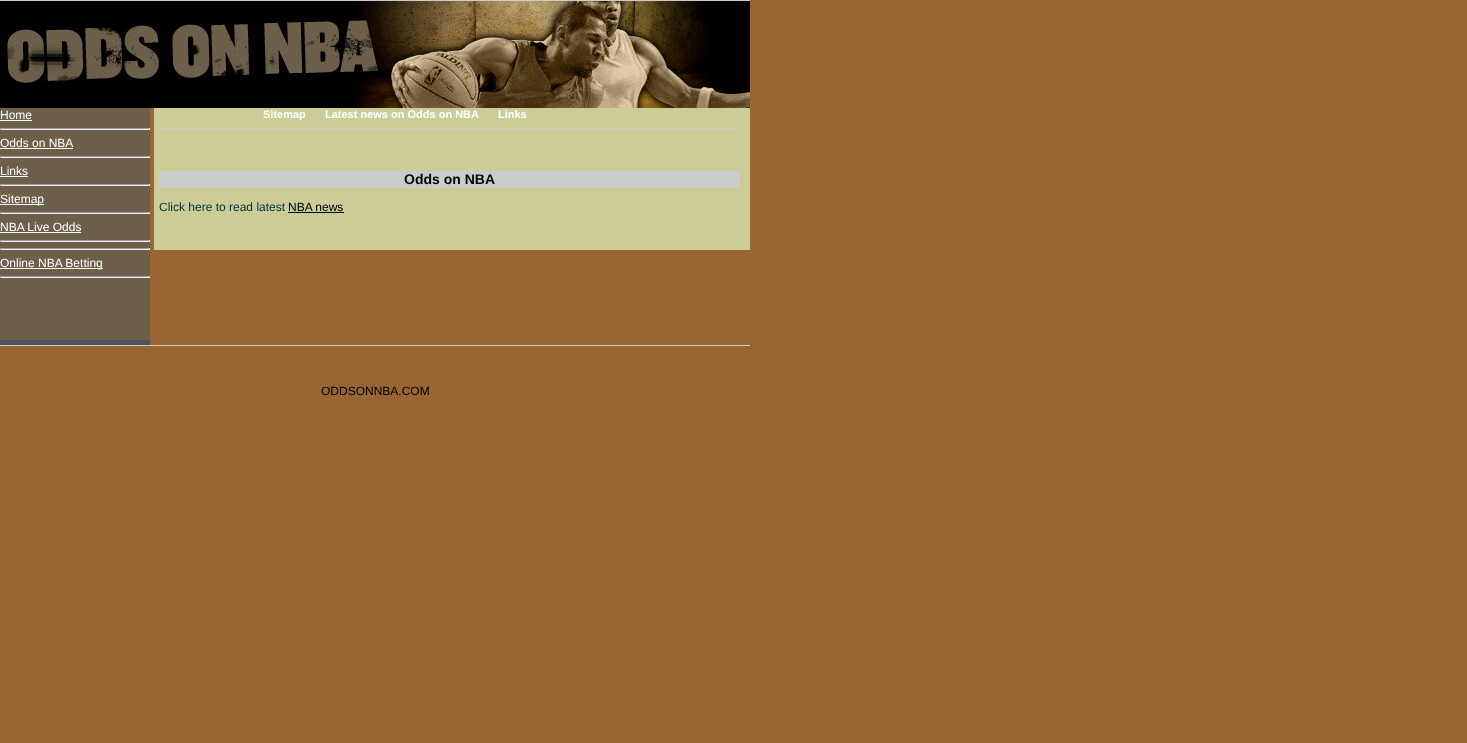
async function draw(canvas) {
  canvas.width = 1467
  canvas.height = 743
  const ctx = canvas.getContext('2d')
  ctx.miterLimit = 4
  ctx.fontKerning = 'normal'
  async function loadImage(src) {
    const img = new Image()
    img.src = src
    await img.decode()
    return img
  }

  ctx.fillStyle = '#963'
  ctx.fillRect(0, 0, 1467, 743)
  ctx.fillStyle = '#ccc'
  ctx.fillRect(0, 0, 750, 1)
  ctx.drawImage(await loadImage('image0.png'), 0, 1, 749, 107)
  ctx.drawImage(await loadImage('image1.png'), 749, 1, 1, 107)
  ctx.fillStyle = '#6c604a'
  ctx.fillRect(0, 108, 150, 232)
  ctx.fillStyle = '#525252'
  ctx.fillRect(0, 340, 150, 5)
  ctx.font = '12px Liberation Sans'
  ctx.fillStyle = '#fff'
  ctx.fillText('Home', 0, 119)
  ctx.fillRect(0, 120, 32, 1)
  ctx.fillStyle = '#9f9f9f'
  ctx.fillRect(0, 128, 150, 1)
  ctx.fillStyle = '#eee'
  ctx.fillRect(149, 128, 1, 2)
  ctx.fillRect(0, 129, 150, 1)
  ctx.fillStyle = '#9f9f9f'
  ctx.fillRect(0, 128, 1, 2)
  ctx.fillStyle = '#fff'
  ctx.fillText('Odds on NBA', 0, 147)
  ctx.fillRect(0, 148, 73, 1)
  ctx.fillStyle = '#9f9f9f'
  ctx.fillRect(0, 156, 150, 1)
  ctx.fillStyle = '#eee'
  ctx.fillRect(149, 156, 1, 2)
  ctx.fillRect(0, 157, 150, 1)
  ctx.fillStyle = '#9f9f9f'
  ctx.fillRect(0, 156, 1, 2)
  ctx.fillStyle = '#fff'
  ctx.fillText('Links', 0, 175)
  ctx.fillRect(0, 176, 28, 1)
  ctx.fillStyle = '#9f9f9f'
  ctx.fillRect(0, 184, 150, 1)
  ctx.fillStyle = '#eee'
  ctx.fillRect(149, 184, 1, 2)
  ctx.fillRect(0, 185, 150, 1)
  ctx.fillStyle = '#9f9f9f'
  ctx.fillRect(0, 184, 1, 2)
  ctx.fillStyle = '#fff'
  ctx.fillRect(0, 204, 44, 1)
  ctx.fillText('Sitemap', 0, 203)
  ctx.fillStyle = '#9f9f9f'
  ctx.fillRect(0, 212, 150, 1)
  ctx.fillStyle = '#eee'
  ctx.fillRect(149, 212, 1, 2)
  ctx.fillRect(0, 213, 150, 1)
  ctx.fillStyle = '#9f9f9f'
  ctx.fillRect(0, 212, 1, 2)
  ctx.fillStyle = '#fff'
  ctx.fillText('NBA Live Odds', 0, 231)
  ctx.fillRect(0, 232, 81, 1)
  ctx.fillStyle = '#9f9f9f'
  ctx.fillRect(0, 240, 150, 1)
  ctx.fillStyle = '#eee'
  ctx.fillRect(149, 240, 1, 2)
  ctx.fillRect(0, 241, 150, 1)
  ctx.fillStyle = '#9f9f9f'
  ctx.fillRect(0, 240, 1, 2)
  ctx.fillRect(0, 248, 150, 1)
  ctx.fillStyle = '#eee'
  ctx.fillRect(149, 248, 1, 2)
  ctx.fillRect(0, 249, 150, 1)
  ctx.fillStyle = '#9f9f9f'
  ctx.fillRect(0, 248, 1, 2)
  ctx.fillStyle = '#fff'
  ctx.fillRect(0, 268, 103, 1)
  ctx.fillText('Online NBA Betting', 0, 267)
  ctx.fillStyle = '#9f9f9f'
  ctx.fillRect(0, 276, 150, 1)
  ctx.fillStyle = '#eee'
  ctx.fillRect(149, 276, 1, 2)
  ctx.fillRect(0, 277, 150, 1)
  ctx.fillStyle = '#9f9f9f'
  ctx.fillRect(0, 276, 1, 2)
  ctx.fillStyle = '#cc9'
  ctx.fillRect(154, 108, 596, 142)
  ctx.font = 'bold 11px Liberation Sans'
  ctx.fillStyle = '#fff'
  ctx.fillText('Sitemap', 263, 118)
  ctx.fillText('Latest news on Odds on NBA', 325, 118)
  ctx.fillText('Links', 498, 118)
  ctx.fillStyle = '#ccc'
  ctx.fillRect(159, 128, 581, 1)
  ctx.fillRect(159, 171, 581, 17)
  ctx.font = 'bold 14px Liberation Sans'
  ctx.fillStyle = '#000'
  ctx.fillText('Odds on NBA', 404, 184)
  ctx.font = '12px Liberation Sans'
  ctx.fillStyle = '#033'
  ctx.fillText('Click here to read latest', 159, 211)
  ctx.fillStyle = '#000'
  ctx.fillText('NBA news', 288, 211)
  ctx.fillRect(288, 212, 56, 1)
  ctx.fillStyle = '#ccc'
  ctx.fillRect(0, 345, 750, 1)
  ctx.fillStyle = '#000'
  ctx.fillText('ODDSONNBA.COM', 321, 395)
}

draw(document.querySelector('canvas'))
